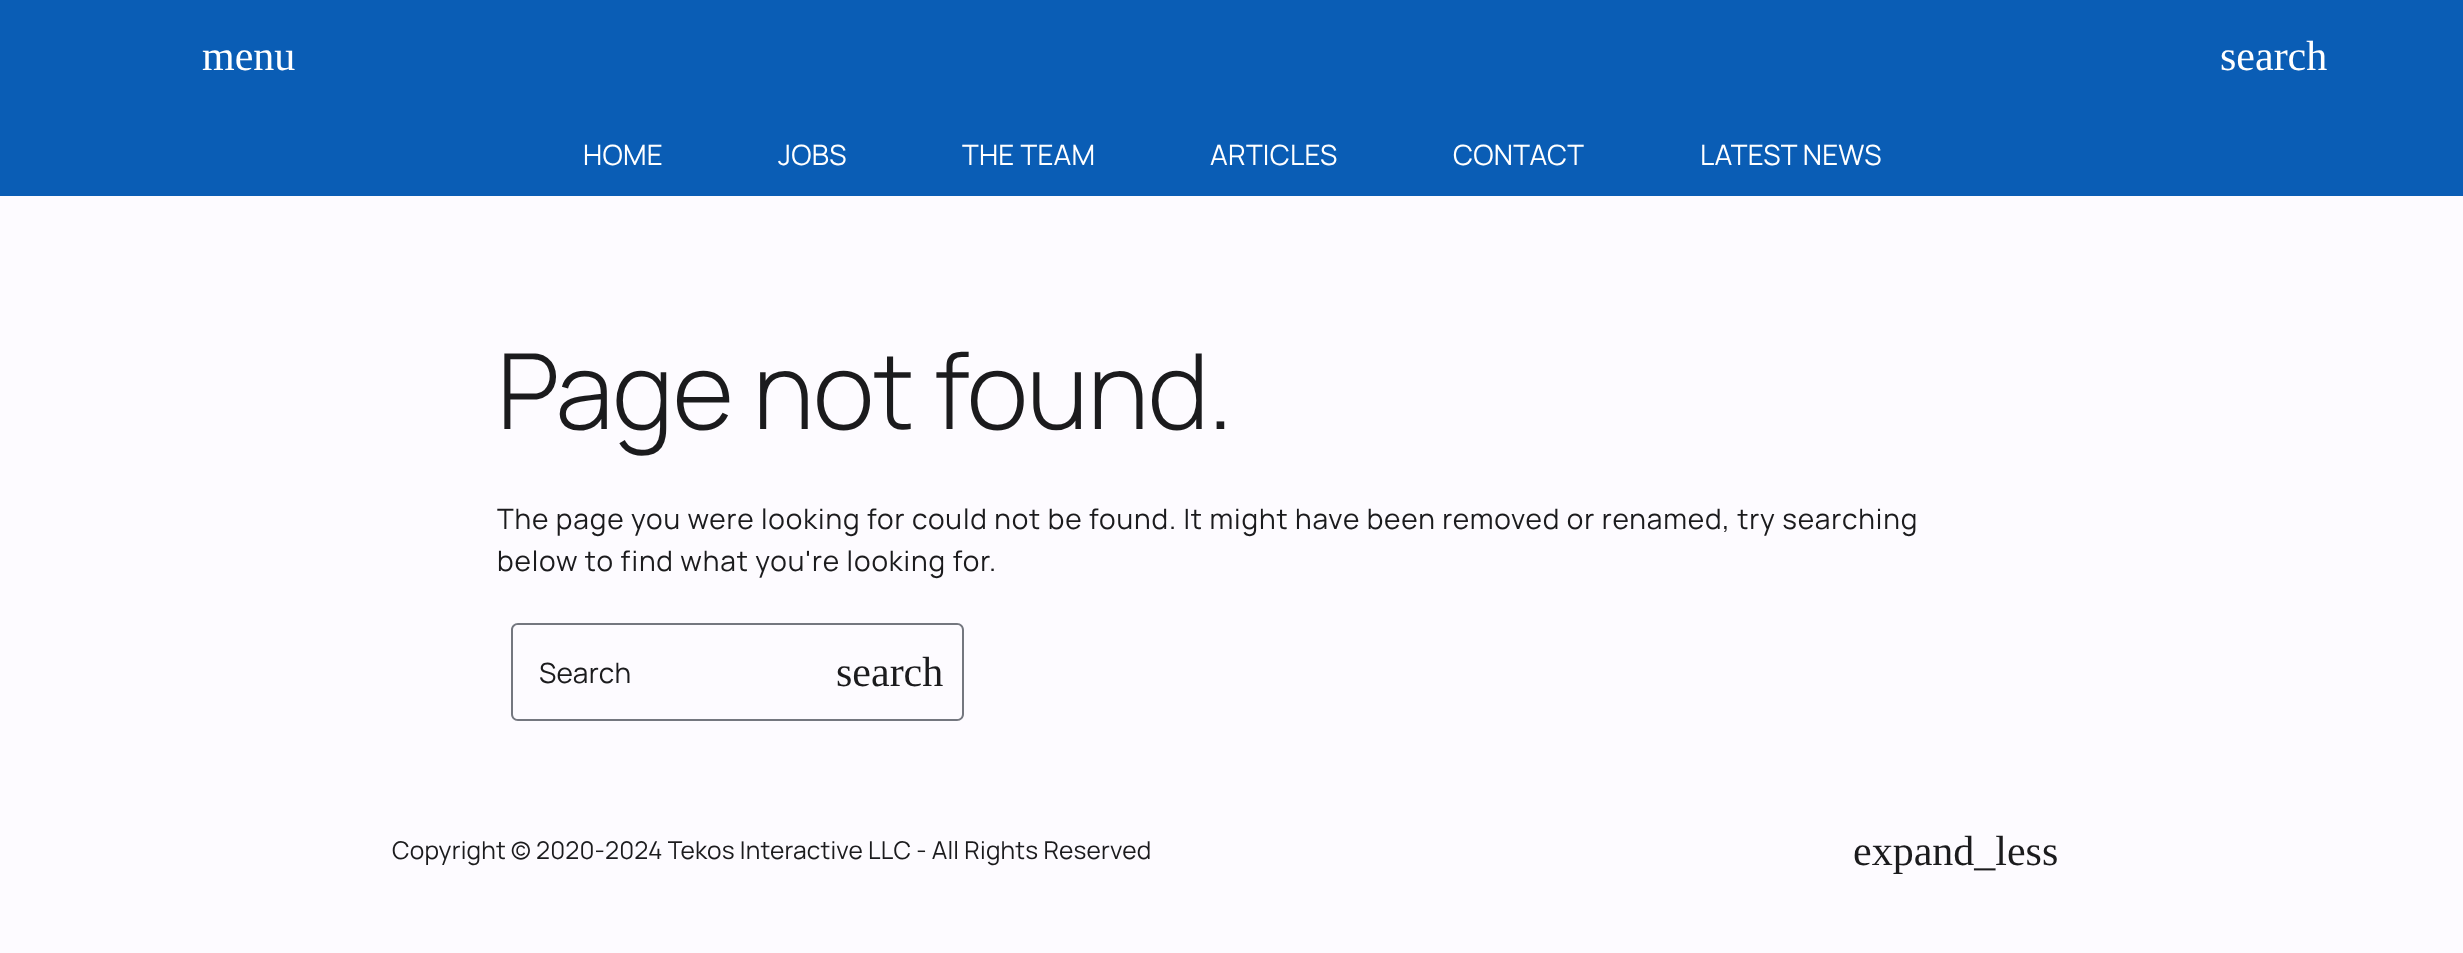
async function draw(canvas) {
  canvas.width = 2463
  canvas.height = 953
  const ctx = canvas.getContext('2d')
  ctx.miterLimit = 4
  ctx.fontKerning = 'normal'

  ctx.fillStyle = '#fdfbff'
  ctx.fillRect(0, 0, 2463, 953)
  ctx.fillStyle = '#0a5db5'
  ctx.fillRect(0, 0, 2463, 196)
  ctx.font = '42px Liberation Serif'
  ctx.fillStyle = '#fff'
  ctx.fillText('menu', 202, 70)
  ctx.fillText('search', 2220, 70)
  ctx.letterSpacing = '0.25px'
  ctx.font = '28px Manrope'
  ctx.fillText('HOME', 583, 165)
  ctx.fillText('JOBS', 778, 165)
  ctx.fillText('THE TEAM', 962, 165)
  ctx.fillText('ARTICLES', 1210, 165)
  ctx.fillText('CONTACT', 1453, 165)
  ctx.fillText('LATEST NEWS', 1700, 165)
  ctx.letterSpacing = '-0.9px'
  ctx.font = '300 105px Manrope'
  ctx.fillStyle = '#1b1b1d'
  ctx.fillText('Page not found.', 497, 429)
  ctx.letterSpacing = '0.88px'
  ctx.font = '28px Manrope'
  ctx.fillText('The page you were looking for could not be found. It might have been removed or renamed, try searching', 497, 529)
  ctx.fillText('below to find what you\'re looking for.', 497, 571)
  ctx.fillStyle = '#74777f'
  ctx.beginPath()
  ctx.moveTo(518, 623)
  ctx.lineTo(532, 623)
  ctx.lineTo(532, 721)
  ctx.lineTo(518, 721)
  ctx.bezierCurveTo(514, 721, 511, 718, 511, 714)
  ctx.lineTo(511, 630)
  ctx.bezierCurveTo(511, 626, 514, 623, 518, 623)
  ctx.closePath()
  ctx.moveTo(518, 625)
  ctx.lineTo(532, 625)
  ctx.lineTo(532, 719)
  ctx.lineTo(518, 719)
  ctx.bezierCurveTo(515, 719, 513, 717, 513, 714)
  ctx.lineTo(513, 630)
  ctx.bezierCurveTo(513, 627, 515, 625, 518, 625)
  ctx.closePath()
  ctx.fill('evenodd')
  ctx.fillRect(532, 623, 93, 2)
  ctx.fillRect(532, 719, 93, 2)
  ctx.beginPath()
  ctx.moveTo(625, 623)
  ctx.lineTo(957, 623)
  ctx.bezierCurveTo(961, 623, 964, 626, 964, 630)
  ctx.lineTo(964, 714)
  ctx.bezierCurveTo(964, 718, 961, 721, 957, 721)
  ctx.lineTo(625, 721)
  ctx.closePath()
  ctx.moveTo(625, 625)
  ctx.lineTo(957, 625)
  ctx.bezierCurveTo(960, 625, 962, 627, 962, 630)
  ctx.lineTo(962, 714)
  ctx.bezierCurveTo(962, 717, 960, 719, 957, 719)
  ctx.lineTo(625, 719)
  ctx.closePath()
  ctx.fill('evenodd')
  ctx.letterSpacing = '0.25px'
  ctx.fillStyle = '#1b1b1d'
  ctx.fillText('Search', 539, 683)
  ctx.letterSpacing = '0px'
  ctx.font = '42px Liberation Serif'
  ctx.fillText('search', 836, 686)
  ctx.letterSpacing = '0.18px'
  ctx.font = '24.5px Manrope'
  ctx.fillText('Copyright © 2020-2024 Tekos Interactive LLC - All Rights Reserved', 392, 859)
  ctx.letterSpacing = '0px'
  ctx.font = '42px Liberation Serif'
  ctx.fillText('expand_less', 1853, 865)
}

draw(document.querySelector('canvas'))
